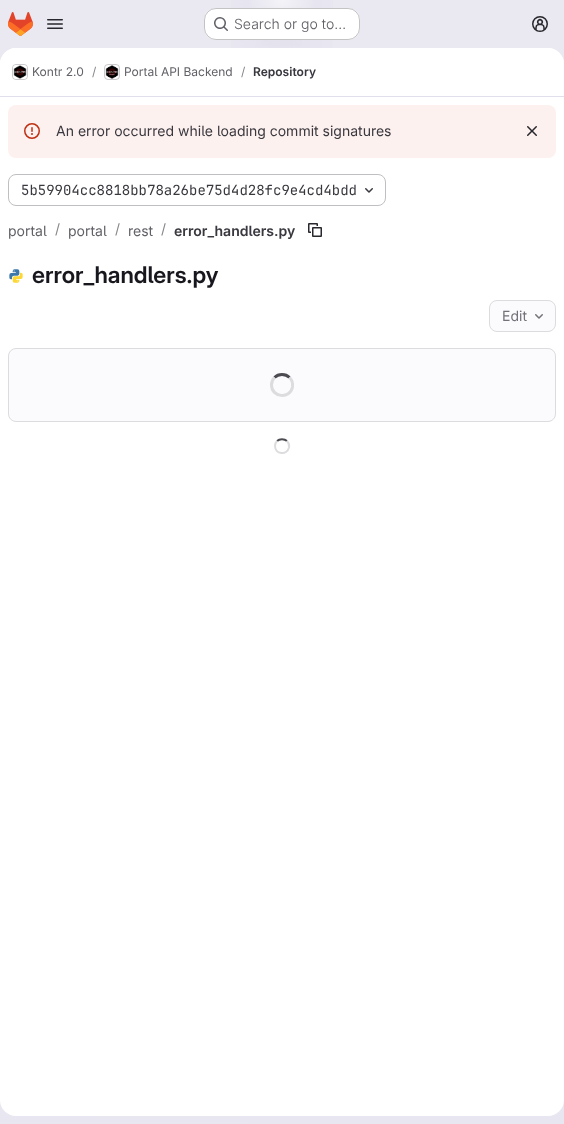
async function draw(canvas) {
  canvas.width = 564
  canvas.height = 1124
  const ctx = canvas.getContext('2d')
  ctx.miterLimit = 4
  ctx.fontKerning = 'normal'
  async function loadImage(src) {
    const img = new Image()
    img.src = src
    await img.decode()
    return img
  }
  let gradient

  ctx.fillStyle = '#fff'
  ctx.fillRect(0, 0, 564, 1124)
  gradient = ctx.createLinearGradient(387, 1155, 177, -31)
  gradient.addColorStop(0, '#e8e6f0')
  gradient.addColorStop(0.7, '#eae9f2')
  ctx.fillStyle = gradient
  ctx.fillRect(0, 0, 564, 1124)
  gradient = ctx.createRadialGradient(282, 0, 0, 282, 0, 282)
  gradient.addColorStop(0, '#e4e2ed')
  gradient.addColorStop(0.25, '#e4e2ed00')
  ctx.fillStyle = gradient
  ctx.beginPath()
  ctx.rect(231, 0, 102, 48)
  ctx.save()
  ctx.clip()
  ctx.scale(1, 1124 / 282)
  ctx.fillRect(0, 0, 564, 282)
  ctx.restore()
  gradient = ctx.createRadialGradient(282, 0, 0, 282, 0, 282)
  gradient.addColorStop(0, '#e4e2ec')
  gradient.addColorStop(0.18, '#e4e2ec00')
  ctx.fillStyle = gradient
  ctx.beginPath()
  ctx.rect(262, 6, 40, 40)
  ctx.save()
  ctx.clip()
  ctx.scale(1, 1124 / 282)
  ctx.fillRect(0, 0, 564, 282)
  ctx.restore()
  gradient = ctx.createRadialGradient(282, 0, 0, 282, 0, 1159)
  gradient.addColorStop(0, '#ffffff99')
  gradient.addColorStop(0.03, '#ffffff00')
  ctx.fillStyle = gradient
  ctx.fillRect(249, 0, 66, 8)
  ctx.drawImage(await loadImage('image0.png'), 8, 12, 25, 24)
  ctx.drawImage(await loadImage('image1.png'), 47, 19, 16, 10)
  ctx.fillStyle = '#fff'
  ctx.beginPath()
  ctx.roundRect(204, 8, 156, 32, 12)
  ctx.fill()
  ctx.beginPath()
  ctx.roundRect(204.5, 8.5, 155, 31, 11.5)
  ctx.strokeStyle = '#0505063d'
  ctx.stroke()
  ctx.drawImage(await loadImage('image2.png'), 214, 17, 14, 14)
  ctx.font = '300 14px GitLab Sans'
  ctx.fillStyle = '#626168'
  ctx.fillText('Search or go to…', 234, 29)
  ctx.drawImage(await loadImage('image3.png'), 532, 16, 16, 16)
  ctx.fillStyle = '#fff'
  ctx.beginPath()
  ctx.roundRect(0, 48, 564, 1068, 16)
  ctx.fill()
  ctx.beginPath()
  ctx.roundRect(0, 48, 564, 49, [16, 16, 0, 0])
  ctx.fill()
  ctx.fillStyle = '#e1dfec'
  ctx.fillRect(0, 96, 564, 1)
  ctx.beginPath()
  ctx.roundRect(12.5, 64.5, 15, 15, 3.5)
  ctx.strokeStyle = '#dcdcde'
  ctx.stroke()
  ctx.drawImage(await loadImage('image4.png'), 13, 65, 14, 14)
  ctx.beginPath()
  ctx.roundRect(12.5, 64.5, 15, 15, 3.5)
  ctx.strokeStyle = '#05050614'
  ctx.stroke()
  ctx.font = '12px GitLab Sans'
  ctx.fillStyle = '#626168'
  ctx.fillText('Kontr 2.0', 32, 76)
  ctx.fillStyle = '#89888d'
  ctx.fillText('/', 92, 76)
  ctx.beginPath()
  ctx.roundRect(104.5, 64.5, 15, 15, 3.5)
  ctx.strokeStyle = '#dcdcde'
  ctx.stroke()
  ctx.drawImage(await loadImage('image5.png'), 105, 65, 14, 14)
  ctx.beginPath()
  ctx.roundRect(104.5, 64.5, 15, 15, 3.5)
  ctx.strokeStyle = '#05050614'
  ctx.stroke()
  ctx.fillStyle = '#626168'
  ctx.fillText('Portal API Backend', 124, 76)
  ctx.fillStyle = '#89888d'
  ctx.fillText('/', 241, 76)
  ctx.font = '600 12px "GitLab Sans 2"'
  ctx.fillStyle = '#3a383f'
  ctx.fillText('Repository', 253, 76)
  ctx.fillStyle = '#fcf1ef'
  ctx.beginPath()
  ctx.roundRect(8, 105, 548, 53, 8)
  ctx.fill()
  ctx.drawImage(await loadImage('image6.png'), 24, 123, 16, 16)
  ctx.font = '14px GitLab Sans'
  ctx.fillStyle = '#3a383f'
  ctx.fillText('An error occurred while loading commit signatures', 56, 136)
  ctx.drawImage(await loadImage('image7.png'), 527, 126, 10, 10)
  ctx.beginPath()
  ctx.roundRect(8.5, 174.5, 377, 31, 7.5)
  ctx.strokeStyle = '#bfbfc3'
  ctx.stroke()
  ctx.font = '14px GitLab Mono'
  ctx.fillText('5b59904cc8818bb78a26be75d4d28fc9e4cd4bdd', 21, 195)
  ctx.drawImage(await loadImage('image8.png'), 365, 188, 8, 5)
  ctx.font = '14px GitLab Sans'
  ctx.fillStyle = '#626168'
  ctx.fillText('portal', 8, 236)
  ctx.fillStyle = '#89888d'
  ctx.fillText('/', 55, 234)
  ctx.fillStyle = '#626168'
  ctx.fillText('portal', 68, 236)
  ctx.fillStyle = '#89888d'
  ctx.fillText('/', 115, 234)
  ctx.fillStyle = '#626168'
  ctx.fillText('rest', 128, 236)
  ctx.fillStyle = '#89888d'
  ctx.fillText('/', 161, 234)
  ctx.font = '600 14px "GitLab Sans 2"'
  ctx.fillStyle = '#3a383f'
  ctx.fillText('error_handlers.py', 174, 236)
  ctx.drawImage(await loadImage('image9.png'), 308, 223, 14, 14)
  ctx.drawImage(await loadImage('image10.png'), 9, 269, 14, 14)
  ctx.font = '600 23px GitLab Sans'
  ctx.fillStyle = '#18171d'
  ctx.fillText('error_handlers.py', 32, 283)
  ctx.fillStyle = '#fbfafd'
  ctx.beginPath()
  ctx.roundRect(489.5, 300.5, 66, 31, 7.5)
  ctx.fill()
  ctx.strokeStyle = '#dcdcde'
  ctx.stroke()
  ctx.font = '14px GitLab Sans'
  ctx.fillStyle = '#737278'
  ctx.fillText('Edit', 502, 321)
  ctx.drawImage(await loadImage('image11.png'), 535, 314, 8, 5)
  ctx.fillStyle = '#fbfafd'
  ctx.beginPath()
  ctx.roundRect(8.5, 348.5, 547, 73, 7.5)
  ctx.fill()
  ctx.stroke()
  ctx.beginPath()
  ctx.moveTo(274.5, 377.5)
  ctx.bezierCurveTo(278.5, 373.5, 285.5, 373.5, 289.5, 377.5)
  ctx.strokeStyle = '#4c4b51'
  ctx.lineWidth = 3
  ctx.stroke()
  ctx.beginPath()
  ctx.moveTo(289.5, 377.5)
  ctx.bezierCurveTo(292, 380, 293, 383.5, 292.5, 387)
  ctx.bezierCurveTo(290, 399.5, 271.5, 397.5, 271.5, 385)
  ctx.bezierCurveTo(271.5, 382, 272.5, 379.5, 274.5, 377.5)
  ctx.strokeStyle = '#dcdcde'
  ctx.stroke()
  ctx.beginPath()
  ctx.moveTo(277, 441)
  ctx.bezierCurveTo(279.5, 438.5, 284.5, 438.5, 287, 441)
  ctx.strokeStyle = '#4c4b51'
  ctx.lineWidth = 2
  ctx.stroke()
  ctx.beginPath()
  ctx.moveTo(287, 441)
  ctx.bezierCurveTo(288.5, 442.5, 289.5, 445, 289, 447.5)
  ctx.bezierCurveTo(287, 455.5, 275, 454.5, 275, 446)
  ctx.bezierCurveTo(275, 444, 275.5, 442.5, 277, 441)
  ctx.strokeStyle = '#dcdcde'
  ctx.stroke()
}

draw(document.querySelector('canvas'))
